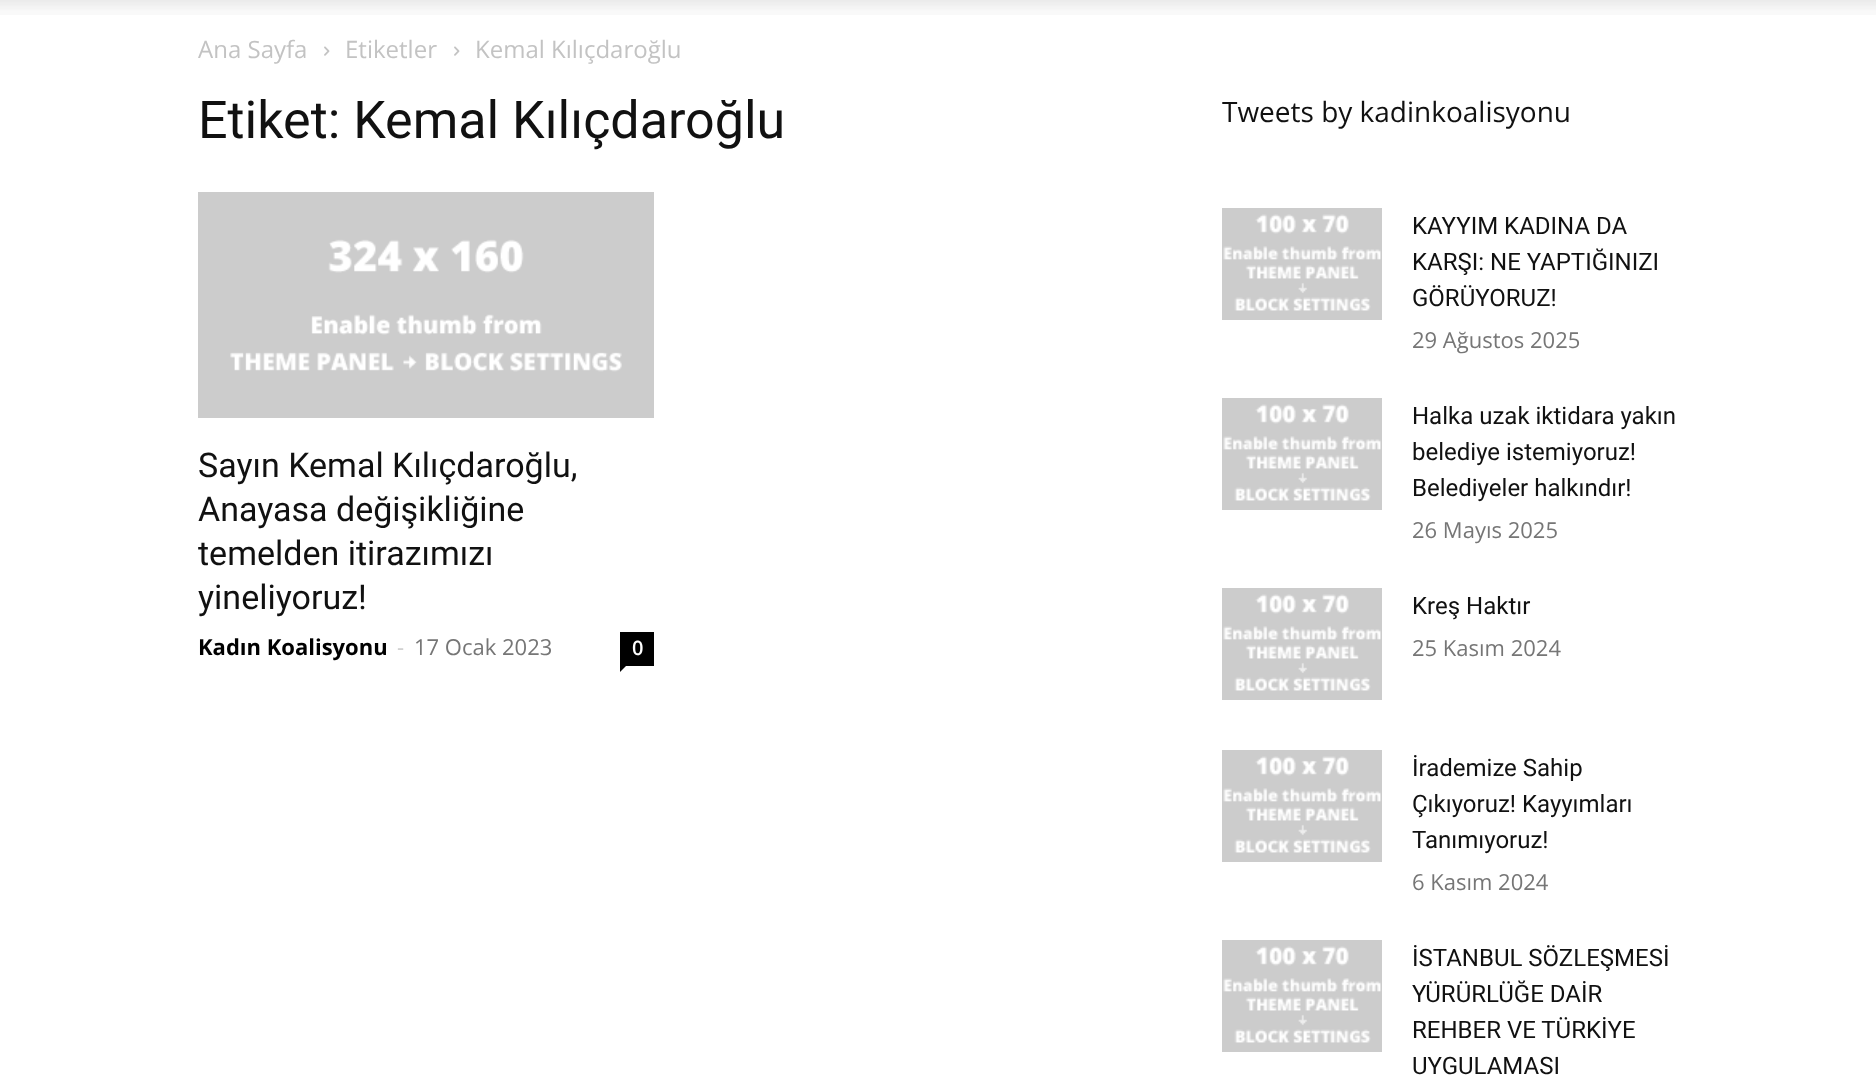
async function draw(canvas) {
  canvas.width = 1876
  canvas.height = 1089
  const ctx = canvas.getContext('2d')
  ctx.miterLimit = 4
  ctx.fontKerning = 'normal'
  async function loadImage(src) {
    const img = new Image()
    img.src = src
    await img.decode()
    return img
  }

  ctx.fillStyle = '#fff'
  ctx.fillRect(0, 0, 1876, 1089)
  ctx.drawImage(await loadImage('image0.png'), 0, 0, 1876, 15)
  ctx.font = '24px Open Sans'
  ctx.fillStyle = '#c3c3c3'
  ctx.fillText('Ana Sayfa', 198, 58)
  ctx.drawImage(await loadImage('image1.png'), 324, 46, 6, 10)
  ctx.fillText('Etiketler', 345, 58)
  ctx.drawImage(await loadImage('image1.png'), 454, 46, 6, 10)
  ctx.fillText('Kemal Kılıçdaroğlu', 475, 58)
  ctx.font = '52px Roboto'
  ctx.fillStyle = '#111'
  ctx.fillText('Etiket: Kemal Kılıçdaroğlu', 198, 138)
  ctx.drawImage(await loadImage('image2.png'), 198, 192, 456, 226)
  ctx.font = '34px Roboto'
  ctx.fillText('Sayın Kemal Kılıçdaroğlu,', 198, 477)
  ctx.fillText('Anayasa değişikliğine', 198, 521)
  ctx.fillText('temelden itirazımızı', 198, 565)
  ctx.fillText('yineliyoruz!', 198, 609)
  ctx.font = 'bold 22px Open Sans'
  ctx.fillStyle = '#000'
  ctx.fillText('Kadın Koalisyonu', 198, 655)
  ctx.font = '22px Open Sans'
  ctx.fillStyle = '#ccc'
  ctx.fillText('-', 397, 655)
  ctx.fillStyle = '#767676'
  ctx.fillText('17 Ocak 2023', 414, 655)
  ctx.fillStyle = '#000'
  ctx.fillRect(620, 632, 34, 34)
  ctx.font = '600 20px Open Sans'
  ctx.fillStyle = '#fff'
  ctx.fillText('0', 632, 655)
  ctx.fillStyle = '#000'
  ctx.beginPath()
  ctx.moveTo(620, 666)
  ctx.lineTo(626, 666)
  ctx.lineTo(620, 672)
  ctx.closePath()
  ctx.fill()
  ctx.font = '28px Open Sans'
  ctx.fillStyle = '#111'
  ctx.fillText('Tweets by kadinkoalisyonu', 1222, 122)
  ctx.drawImage(await loadImage('image3.png'), 1222, 208, 160, 112)
  ctx.font = '24px Roboto'
  ctx.fillText('KAYYIM KADINA DA', 1412, 234)
  ctx.fillText('KARŞI: NE YAPTIĞINIZI', 1412, 270)
  ctx.fillText('GÖRÜYORUZ!', 1412, 306)
  ctx.font = '22px Open Sans'
  ctx.fillStyle = '#767676'
  ctx.fillText('29 Ağustos 2025', 1412, 348)
  ctx.drawImage(await loadImage('image3.png'), 1222, 398, 160, 112)
  ctx.font = '24px Roboto'
  ctx.fillStyle = '#111'
  ctx.fillText('Halka uzak iktidara yakın', 1412, 424)
  ctx.fillText('belediye istemiyoruz!', 1412, 460)
  ctx.fillText('Belediyeler halkındır!', 1412, 496)
  ctx.font = '22px Open Sans'
  ctx.fillStyle = '#767676'
  ctx.fillText('26 Mayıs 2025', 1412, 538)
  ctx.drawImage(await loadImage('image3.png'), 1222, 588, 160, 112)
  ctx.font = '24px Roboto'
  ctx.fillStyle = '#111'
  ctx.fillText('Kreş Haktır', 1412, 614)
  ctx.font = '22px Open Sans'
  ctx.fillStyle = '#767676'
  ctx.fillText('25 Kasım 2024', 1412, 656)
  ctx.drawImage(await loadImage('image3.png'), 1222, 750, 160, 112)
  ctx.font = '24px Roboto'
  ctx.fillStyle = '#111'
  ctx.fillText('İrademize Sahip', 1412, 776)
  ctx.fillText('Çıkıyoruz! Kayyımları', 1412, 812)
  ctx.fillText('Tanımıyoruz!', 1412, 848)
  ctx.font = '22px Open Sans'
  ctx.fillStyle = '#767676'
  ctx.fillText('6 Kasım 2024', 1412, 890)
  ctx.drawImage(await loadImage('image3.png'), 1222, 940, 160, 112)
  ctx.font = '24px Roboto'
  ctx.fillStyle = '#111'
  ctx.fillText('İSTANBUL SÖZLEŞMESİ', 1412, 966)
  ctx.fillText('YÜRÜRLÜĞE DAİR', 1412, 1002)
  ctx.fillText('REHBER VE TÜRKİYE', 1412, 1038)
  ctx.fillText('UYGULAMASI', 1412, 1074)
}

draw(document.querySelector('canvas'))
